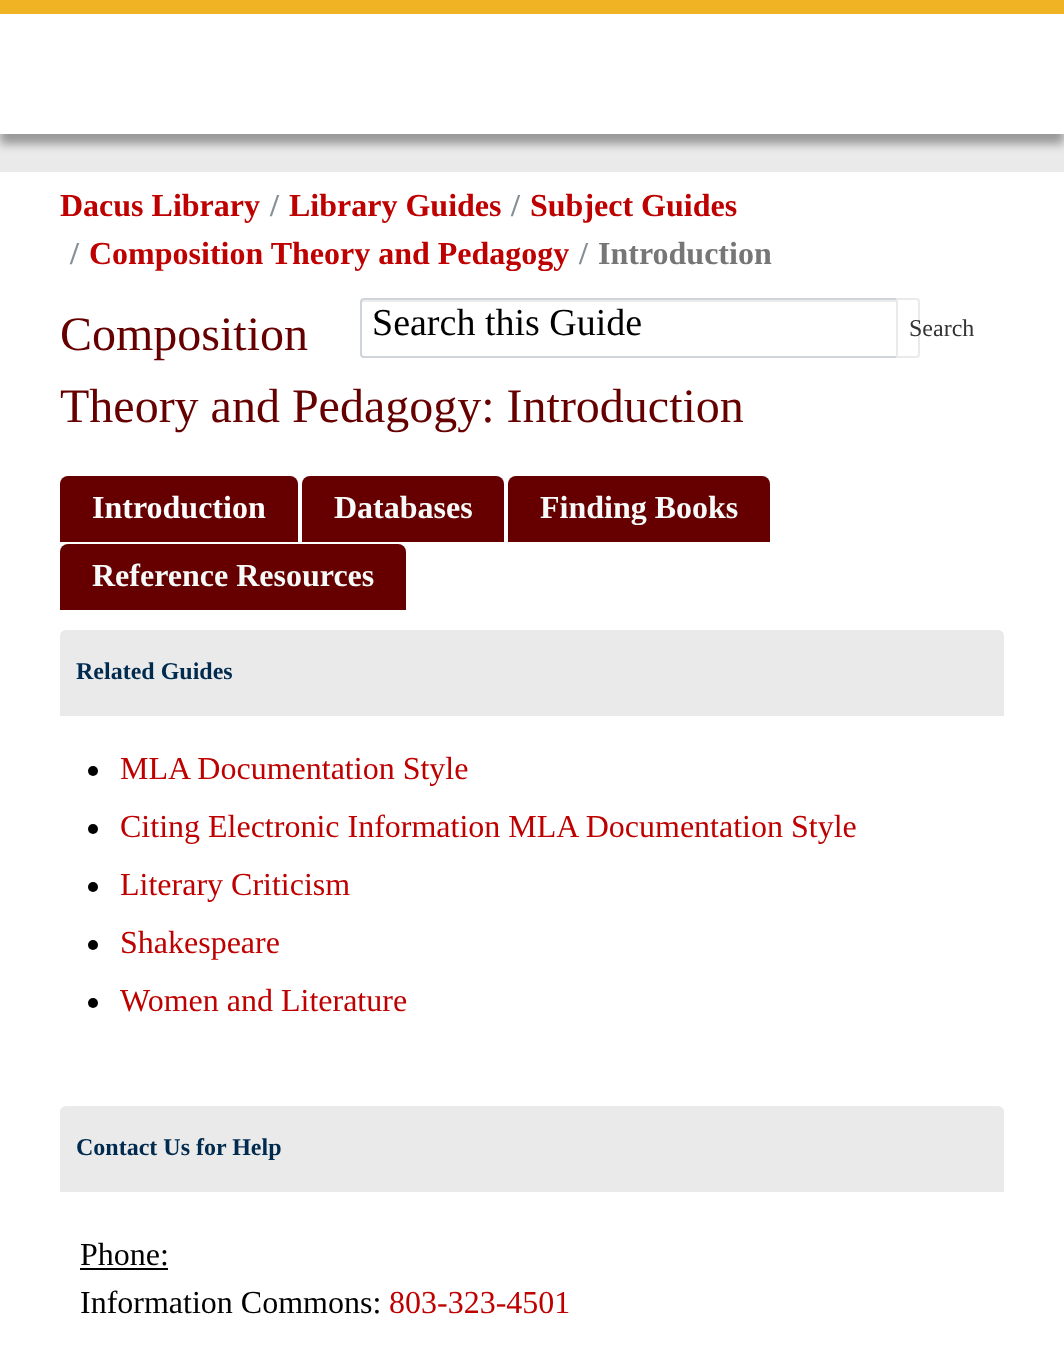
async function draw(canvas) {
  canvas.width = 1064
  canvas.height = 1352
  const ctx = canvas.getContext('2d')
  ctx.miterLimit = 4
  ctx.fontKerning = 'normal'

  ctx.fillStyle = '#eaeaea'
  ctx.fillRect(0, 0, 1064, 1352)
  ctx.fillStyle = '#00000059'
  ctx.filter = 'blur(5px)'
  ctx.beginPath()
  ctx.rect(0, 10, 1064, 134)
  ctx.fill()
  ctx.filter = 'none'
  ctx.fillStyle = '#fff'
  ctx.fillRect(0, 14, 1064, 120)
  ctx.fillStyle = '#f0b323'
  ctx.fillRect(0, 0, 1064, 14)
  ctx.fillStyle = '#fff'
  ctx.fillRect(0, 172, 1064, 1180)
  ctx.font = 'bold 32px Liberation Serif'
  ctx.fillStyle = '#be0000'
  ctx.fillText('Dacus Library', 60, 216)
  ctx.fillStyle = '#868e96'
  ctx.fillText('/', 270, 216)
  ctx.fillStyle = '#be0000'
  ctx.fillText('Library Guides', 289, 216)
  ctx.fillStyle = '#868e96'
  ctx.fillText('/', 511, 216)
  ctx.fillStyle = '#be0000'
  ctx.fillText('Subject Guides', 530, 216)
  ctx.fillStyle = '#868e96'
  ctx.fillText('/', 70, 264)
  ctx.fillStyle = '#be0000'
  ctx.fillText('Composition Theory and Pedagogy', 89, 264)
  ctx.fillStyle = '#868e96'
  ctx.fillText('/', 579, 264)
  ctx.fillStyle = '#767676'
  ctx.fillText('Introduction', 598, 264)
  ctx.fillStyle = '#ececec'
  ctx.beginPath()
  ctx.moveTo(364, 302)
  ctx.lineTo(896, 302)
  ctx.lineTo(896, 300)
  ctx.lineTo(364, 300)
  ctx.lineTo(362, 301)
  ctx.lineTo(362, 303)
  ctx.closePath()
  ctx.fill()
  ctx.beginPath()
  ctx.roundRect(361, 299, 536, 58, [3, 0, 0, 3])
  ctx.strokeStyle = '#ced4da'
  ctx.lineWidth = 2
  ctx.stroke()
  ctx.font = '38px Liberation Serif'
  ctx.fillStyle = '#000'
  ctx.fillText('Search this Guide', 372, 335)
  ctx.fillStyle = '#fff'
  ctx.beginPath()
  ctx.roundRect(897, 299, 22, 58, [0, 3, 3, 0])
  ctx.fill()
  ctx.strokeStyle = '#eaeaea'
  ctx.stroke()
  ctx.font = '24px Liberation Serif'
  ctx.fillStyle = '#333'
  ctx.fillText('Search', 909, 336)
  ctx.font = '48px Liberation Serif'
  ctx.fillStyle = '#600'
  ctx.fillText('Composition', 60, 350)
  ctx.fillText('Theory and Pedagogy: Introduction', 60, 422)
  ctx.beginPath()
  ctx.roundRect(60, 476, 238, 66, [8, 8, 0, 0])
  ctx.fill()
  ctx.font = 'bold 32px Liberation Serif'
  ctx.fillStyle = '#fff'
  ctx.fillText('Introduction', 92, 518)
  ctx.fillStyle = '#600'
  ctx.beginPath()
  ctx.roundRect(302, 476, 202, 66, [8, 8, 0, 0])
  ctx.fill()
  ctx.fillStyle = '#f6faf9'
  ctx.fillText('Databases', 334, 518)
  ctx.fillStyle = '#600'
  ctx.beginPath()
  ctx.roundRect(508, 476, 262, 66, [8, 8, 0, 0])
  ctx.fill()
  ctx.fillStyle = '#f6faf9'
  ctx.fillText('Finding Books', 540, 518)
  ctx.fillStyle = '#600'
  ctx.beginPath()
  ctx.roundRect(60, 544, 346, 66, [8, 8, 0, 0])
  ctx.fill()
  ctx.fillStyle = '#f6faf9'
  ctx.fillText('Reference Resources', 92, 586)
  ctx.fillStyle = '#eaeaea'
  ctx.beginPath()
  ctx.roundRect(60, 630, 944, 86, [6, 6, 0, 0])
  ctx.fill()
  ctx.font = 'bold 24px Liberation Serif'
  ctx.fillStyle = '#002a4e'
  ctx.fillText('Related Guides', 76, 679)
  ctx.fillStyle = '#000'
  ctx.beginPath()
  ctx.arc(93, 771, 5, 0, 2 * Math.PI)
  ctx.fill()
  ctx.font = '32px Liberation Serif'
  ctx.fillStyle = '#be0000'
  ctx.fillText('MLA Documentation Style', 120, 779)
  ctx.fillStyle = '#000'
  ctx.beginPath()
  ctx.arc(93, 829, 5, 0, 2 * Math.PI)
  ctx.fill()
  ctx.fillStyle = '#be0000'
  ctx.fillText('Citing Electronic Information MLA Documentation Style', 120, 837)
  ctx.fillStyle = '#000'
  ctx.beginPath()
  ctx.arc(93, 887, 5, 0, 2 * Math.PI)
  ctx.fill()
  ctx.fillStyle = '#be0000'
  ctx.fillText('Literary Criticism', 120, 895)
  ctx.fillStyle = '#000'
  ctx.beginPath()
  ctx.arc(93, 945, 5, 0, 2 * Math.PI)
  ctx.fill()
  ctx.fillStyle = '#be0000'
  ctx.fillText('Shakespeare', 120, 953)
  ctx.fillStyle = '#000'
  ctx.beginPath()
  ctx.arc(93, 1003, 5, 0, 2 * Math.PI)
  ctx.fill()
  ctx.fillStyle = '#be0000'
  ctx.fillText('Women and Literature', 120, 1011)
  ctx.fillStyle = '#eaeaea'
  ctx.beginPath()
  ctx.roundRect(60, 1106, 944, 86, [6, 6, 0, 0])
  ctx.fill()
  ctx.font = 'bold 24px Liberation Serif'
  ctx.fillStyle = '#002a4e'
  ctx.fillText('Contact Us for Help', 76, 1155)
  ctx.font = '32px Liberation Serif'
  ctx.fillStyle = '#000'
  ctx.fillText('Phone:', 80, 1265)
  ctx.fillRect(80, 1268, 88, 2)
  ctx.fillText('Information Commons:', 80, 1313)
  ctx.fillStyle = '#be0000'
  ctx.fillText('803-323-4501', 389, 1313)
}

draw(document.querySelector('canvas'))
